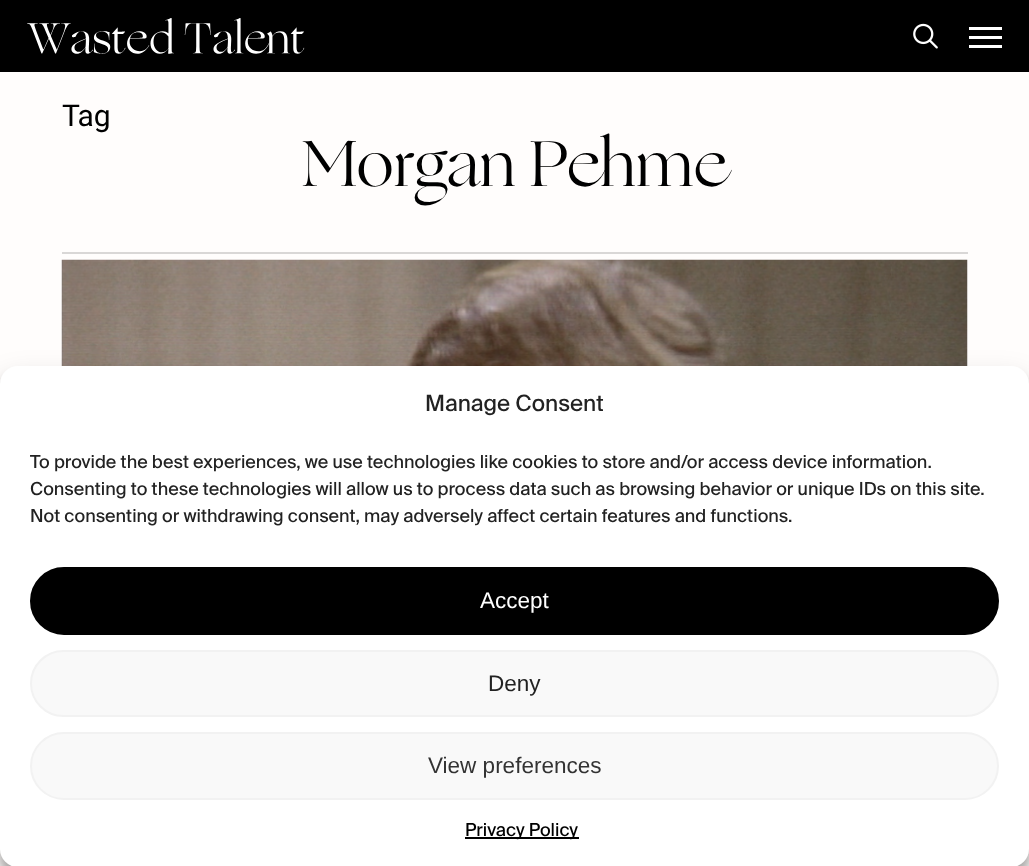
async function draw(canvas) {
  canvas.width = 1029
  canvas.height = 866
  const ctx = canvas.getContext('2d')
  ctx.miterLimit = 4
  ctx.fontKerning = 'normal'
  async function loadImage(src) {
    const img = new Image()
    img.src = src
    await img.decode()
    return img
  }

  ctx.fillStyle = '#fffdfc'
  ctx.fillRect(0, 0, 1029, 866)
  ctx.fillStyle = '#000'
  ctx.fillRect(0, 0, 1029, 72)
  ctx.drawImage(await loadImage('image0.png'), 27, 18, 278, 36)
  ctx.drawImage(await loadImage('image1.png'), 913, 23, 25, 26)
  ctx.fillStyle = '#fff'
  ctx.fillRect(969, 27, 33, 3)
  ctx.fillRect(969, 45, 33, 3)
  ctx.fillRect(969, 36, 33, 3)
  ctx.fillStyle = '#d9d7d6'
  ctx.fillRect(62, 252, 906, 2)
  ctx.font = '30px Heebo'
  ctx.fillStyle = '#000'
  ctx.fillText('Tag', 62, 126)
  ctx.font = '64.5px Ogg'
  ctx.fillText('Morgan Pehme', 302, 186)
  ctx.drawImage(await loadImage('image2.png'), 61, 259, 907, 107)
  ctx.fillStyle = '#0000003b'
  ctx.filter = 'blur(4.5px)'
  ctx.beginPath()
  ctx.roundRect(0, 375, 1029, 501, 18)
  ctx.fill()
  ctx.filter = 'none'
  ctx.fillStyle = '#00000030'
  ctx.filter = 'blur(15px)'
  ctx.beginPath()
  ctx.roundRect(0, 381, 1029, 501, 18)
  ctx.fill()
  ctx.filter = 'none'
  ctx.fillStyle = '#fff'
  ctx.beginPath()
  ctx.roundRect(0, 366, 1029, 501, 18)
  ctx.fill()
  ctx.font = '22.5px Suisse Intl'
  ctx.fillStyle = '#222'
  ctx.fillText('Manage Consent', 425, 411)
  ctx.font = '18px Suisse Intl'
  ctx.fillText('To provide the best experiences, we use technologies like cookies to store and/or access device information.', 30, 468)
  ctx.fillText('Consenting to these technologies will allow us to process data such as browsing behavior or unique IDs on this site.', 30, 495)
  ctx.fillText('Not consenting or withdrawing consent, may adversely affect certain features and functions.', 30, 522)
  ctx.fillStyle = '#000'
  ctx.beginPath()
  ctx.roundRect(31, 568, 967, 66, 33)
  ctx.fill()
  ctx.strokeStyle = '#000'
  ctx.lineWidth = 2
  ctx.stroke()
  ctx.font = '22.5px Liberation Sans'
  ctx.fillStyle = '#fff'
  ctx.fillText('Accept', 480, 608)
  ctx.fillStyle = '#f9f9f9'
  ctx.beginPath()
  ctx.roundRect(31, 651, 967, 65, 32.5)
  ctx.fill()
  ctx.strokeStyle = '#f2f2f2'
  ctx.stroke()
  ctx.fillStyle = '#222'
  ctx.fillText('Deny', 488, 691)
  ctx.fillStyle = '#f9f9f9'
  ctx.beginPath()
  ctx.roundRect(31, 733, 967, 66, 33)
  ctx.fill()
  ctx.stroke()
  ctx.fillStyle = '#333'
  ctx.fillText('View preferences', 428, 773)
  ctx.fillStyle = '#000'
  ctx.fillRect(465, 837, 114, 2)
  ctx.font = '18px Suisse Intl'
  ctx.fillText('Privacy Policy', 465, 836)
}

draw(document.querySelector('canvas'))
